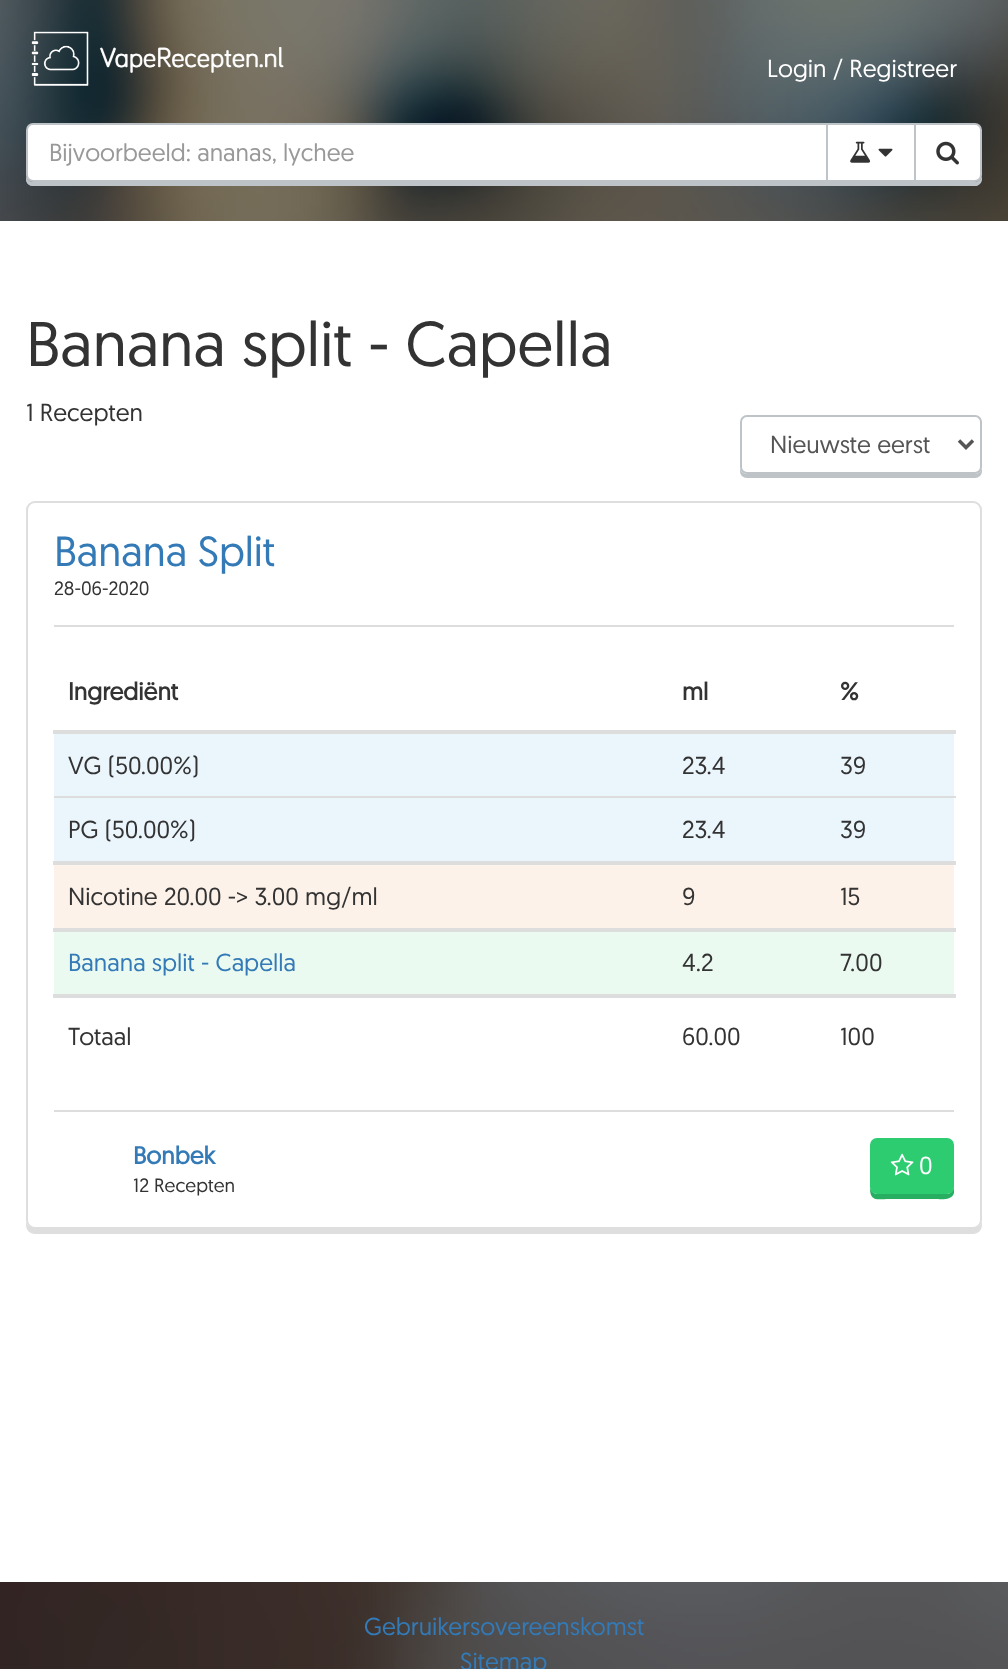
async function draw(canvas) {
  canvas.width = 1008
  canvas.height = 1669
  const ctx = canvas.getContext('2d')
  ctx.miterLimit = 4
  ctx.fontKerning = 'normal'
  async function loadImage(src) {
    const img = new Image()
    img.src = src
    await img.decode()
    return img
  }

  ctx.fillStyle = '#fff'
  ctx.fillRect(0, 0, 1008, 1669)
  ctx.drawImage(await loadImage('image0.png'), 0, 0, 1008, 221)
  ctx.drawImage(await loadImage('image1.png'), 31, 31, 253, 55)
  ctx.font = '24.5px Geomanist'
  ctx.fillText('Login / Registreer', 767, 77)
  ctx.fillStyle = '#bdc3c7'
  ctx.beginPath()
  ctx.moveTo(26, 131)
  ctx.lineTo(26, 179)
  ctx.bezierCurveTo(26, 183, 29, 186, 33, 186)
  ctx.lineTo(975, 186)
  ctx.bezierCurveTo(979, 186, 982, 183, 982, 179)
  ctx.lineTo(982, 131)
  ctx.lineTo(982, 175)
  ctx.bezierCurveTo(982, 179, 979, 182, 975, 182)
  ctx.lineTo(33, 182)
  ctx.bezierCurveTo(29, 182, 26, 179, 26, 175)
  ctx.closePath()
  ctx.fill()
  ctx.beginPath()
  ctx.moveTo(26, 131)
  ctx.lineTo(26, 179)
  ctx.bezierCurveTo(26, 183, 29, 186, 33, 186)
  ctx.lineTo(828, 186)
  ctx.lineTo(828, 126)
  ctx.lineTo(828, 182)
  ctx.lineTo(33, 182)
  ctx.bezierCurveTo(29, 182, 26, 179, 26, 175)
  ctx.closePath()
  ctx.fill()
  ctx.fillStyle = '#fff'
  ctx.beginPath()
  ctx.roundRect(27, 124, 800, 57, [6, 0, 0, 6])
  ctx.fill()
  ctx.strokeStyle = '#bdc3c7'
  ctx.lineWidth = 2
  ctx.stroke()
  ctx.fillStyle = '#999'
  ctx.fillText('Bijvoorbeeld: ananas, lychee', 49, 161)
  ctx.fillStyle = '#fff'
  ctx.fillRect(828, 125, 86, 55)
  ctx.fillStyle = '#bdc3c7'
  ctx.fillRect(828, 123, 87, 2)
  ctx.fillRect(828, 180, 87, 2)
  ctx.drawImage(await loadImage('image2.png'), 850, 141, 21, 22)
  ctx.drawImage(await loadImage('image3.png'), 878, 148, 15, 9)
  ctx.beginPath()
  ctx.moveTo(914, 182)
  ctx.lineTo(914, 186)
  ctx.lineTo(976, 186)
  ctx.bezierCurveTo(983, 184, 982, 176, 982, 171)
  ctx.lineTo(982, 131)
  ctx.lineTo(982, 175)
  ctx.bezierCurveTo(982, 179, 979, 182, 975, 182)
  ctx.closePath()
  ctx.fill()
  ctx.fillStyle = '#fff'
  ctx.beginPath()
  ctx.roundRect(915, 124, 66, 57, [0, 6, 6, 0])
  ctx.fill()
  ctx.stroke()
  ctx.drawImage(await loadImage('image4.png'), 936, 141, 23, 24)
  ctx.font = '63px Geomanist'
  ctx.fillStyle = '#333'
  ctx.fillText('Banana split - Capella', 26, 366)
  ctx.font = '24.5px Geomanist'
  ctx.fillText('1 Recepten', 26, 421)
  ctx.fillStyle = '#bdc3c7'
  ctx.beginPath()
  ctx.moveTo(740, 423)
  ctx.lineTo(740, 471)
  ctx.bezierCurveTo(740, 475, 743, 478, 747, 478)
  ctx.lineTo(975, 478)
  ctx.bezierCurveTo(979, 478, 982, 475, 982, 471)
  ctx.lineTo(982, 423)
  ctx.lineTo(982, 467)
  ctx.bezierCurveTo(982, 471, 979, 474, 975, 474)
  ctx.lineTo(747, 474)
  ctx.bezierCurveTo(743, 474, 740, 471, 740, 467)
  ctx.closePath()
  ctx.fill()
  ctx.fillStyle = '#fff'
  ctx.beginPath()
  ctx.roundRect(741, 416, 240, 57, 6)
  ctx.fill()
  ctx.stroke()
  ctx.beginPath()
  ctx.moveTo(959, 440.5)
  ctx.lineTo(966, 447.5)
  ctx.lineTo(973, 440.5)
  ctx.strokeStyle = '#555'
  ctx.lineWidth = 3.5
  ctx.stroke()
  ctx.fillStyle = '#555'
  ctx.fillText('Nieuwste eerst', 770, 453)
  ctx.fillStyle = '#dedede'
  ctx.beginPath()
  ctx.moveTo(26, 513)
  ctx.lineTo(26, 1225)
  ctx.bezierCurveTo(26, 1230, 30, 1234, 35, 1234)
  ctx.lineTo(973, 1234)
  ctx.bezierCurveTo(978, 1234, 982, 1230, 982, 1225)
  ctx.lineTo(982, 513)
  ctx.lineTo(982, 1220)
  ctx.bezierCurveTo(982, 1225, 978, 1228, 973, 1228)
  ctx.lineTo(35, 1228)
  ctx.bezierCurveTo(30, 1228, 26, 1225, 26, 1220)
  ctx.closePath()
  ctx.fill()
  ctx.fillStyle = '#fff'
  ctx.beginPath()
  ctx.roundRect(27, 502, 954, 726, 8)
  ctx.fill()
  ctx.strokeStyle = '#dedede'
  ctx.lineWidth = 2
  ctx.stroke()
  ctx.fillStyle = '#ddd'
  ctx.fillRect(54, 625, 900, 2)
  ctx.font = '42px Geomanist'
  ctx.fillStyle = '#337ab7'
  ctx.fillText('Banana Split', 54, 566)
  ctx.font = '19.25px Geomanist'
  ctx.fillStyle = '#333'
  ctx.fillText('28-06-2020', 54, 595)
  ctx.font = 'bold 24.5px Geomanist'
  ctx.fillText('Ingrediënt', 68, 700)
  ctx.fillText('ml', 682, 700)
  ctx.fillStyle = '#ddd'
  ctx.fillRect(53, 730, 903, 4)
  ctx.fillStyle = '#333'
  ctx.fillText('%', 840, 700)
  ctx.fillStyle = '#ebf5fc'
  ctx.fillRect(54, 734, 900, 127)
  ctx.font = '24.5px Geomanist'
  ctx.fillStyle = '#333'
  ctx.fillText('VG (50.00%)', 68, 774)
  ctx.fillText('23.4', 682, 774)
  ctx.fillText('39', 840, 774)
  ctx.fillText('PG (50.00%)', 68, 838)
  ctx.fillText('23.4', 682, 838)
  ctx.fillStyle = '#ddd'
  ctx.fillRect(54, 796, 902, 2)
  ctx.fillStyle = '#333'
  ctx.fillText('39', 840, 838)
  ctx.fillStyle = '#fdf2e9'
  ctx.fillRect(54, 865, 900, 63)
  ctx.fillStyle = '#ddd'
  ctx.fillRect(53, 861, 903, 4)
  ctx.fillStyle = '#333'
  ctx.fillText('Nicotine 20.00 -> 3.00 mg/ml', 68, 905)
  ctx.fillText('9', 682, 905)
  ctx.fillText('15', 840, 905)
  ctx.fillStyle = '#eafaf1'
  ctx.fillRect(54, 932, 900, 62)
  ctx.fillStyle = '#ddd'
  ctx.fillRect(53, 928, 903, 4)
  ctx.fillStyle = '#337ab7'
  ctx.fillText('Banana split - Capella', 68, 971)
  ctx.fillStyle = '#333'
  ctx.fillText('4.2', 682, 971)
  ctx.fillText('7.00', 840, 971)
  ctx.fillText('Totaal', 68, 1045)
  ctx.fillText('60.00', 682, 1045)
  ctx.fillStyle = '#ddd'
  ctx.fillRect(53, 994, 903, 4)
  ctx.fillStyle = '#333'
  ctx.fillText('100', 840, 1045)
  ctx.fillStyle = '#ddd'
  ctx.fillRect(54, 1110, 900, 2)
  ctx.font = 'bold 24.5px Geomanist'
  ctx.fillStyle = '#337ab7'
  ctx.fillText('Bonbek', 133, 1164)
  ctx.font = '19.25px Geomanist'
  ctx.fillStyle = '#333'
  ctx.fillText('12 Recepten', 133, 1192)
  ctx.fillStyle = '#27ae60'
  ctx.beginPath()
  ctx.moveTo(870, 1188)
  ctx.bezierCurveTo(870, 1202, 877, 1199, 889, 1199)
  ctx.lineTo(935, 1199)
  ctx.bezierCurveTo(940, 1199, 952, 1201, 954, 1193)
  ctx.lineTo(954, 1148)
  ctx.lineTo(954, 1186)
  ctx.bezierCurveTo(954, 1190, 951, 1194, 947, 1194)
  ctx.lineTo(877, 1194)
  ctx.bezierCurveTo(874, 1194, 871, 1191, 870, 1188)
  ctx.closePath()
  ctx.fill()
  ctx.fillStyle = '#2ecc71'
  ctx.beginPath()
  ctx.roundRect(870, 1138, 84, 56, 7)
  ctx.fill()
  ctx.drawImage(await loadImage('image5.png'), 890, 1153, 24, 23)
  ctx.font = '24.5px Geomanist'
  ctx.fillStyle = '#fff'
  ctx.fillText('0', 919, 1174)
  ctx.drawImage(await loadImage('image6.png'), 0, 1582, 1008, 87)
  ctx.fillStyle = '#337ab7'
  ctx.fillText('Gebruikersovereenskomst', 364, 1635)
  ctx.fillText('Sitemap', 460, 1670)
}

draw(document.querySelector('canvas'))
